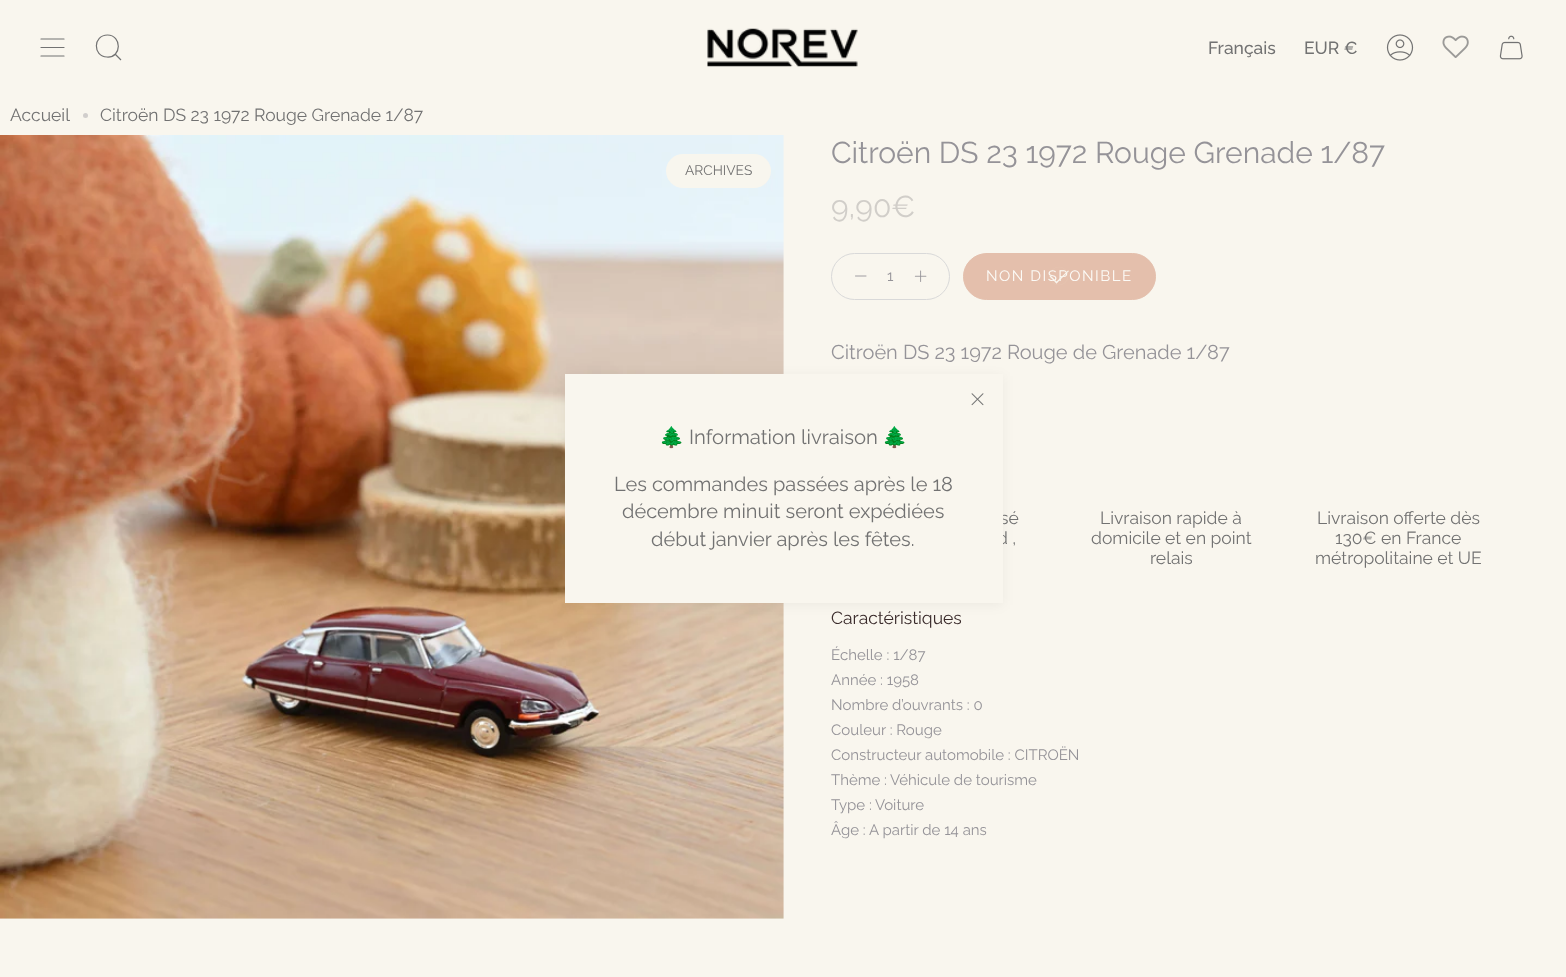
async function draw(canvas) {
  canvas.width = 1566
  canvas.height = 977
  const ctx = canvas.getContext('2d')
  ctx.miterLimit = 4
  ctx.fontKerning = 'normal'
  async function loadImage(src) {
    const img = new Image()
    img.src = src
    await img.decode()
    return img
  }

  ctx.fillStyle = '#f9f6ee'
  ctx.fillRect(0, 0, 1566, 977)
  ctx.beginPath()
  ctx.moveTo(41, 39)
  ctx.lineTo(64, 39)
  ctx.moveTo(41, 47.5)
  ctx.lineTo(64, 47.5)
  ctx.moveTo(41, 56)
  ctx.lineTo(64, 56)
  ctx.strokeStyle = '#727272'
  ctx.lineWidth = 1.2
  ctx.lineCap = 'round'
  ctx.lineJoin = 'round'
  ctx.stroke()
  ctx.beginPath()
  ctx.moveTo(107.5, 35)
  ctx.bezierCurveTo(122, 35, 122, 58, 107, 57)
  ctx.bezierCurveTo(92.5, 56.5, 93, 35, 107.5, 35)
  ctx.closePath()
  ctx.moveTo(115, 54)
  ctx.lineTo(121, 60)
  ctx.lineCap = 'butt'
  ctx.lineJoin = 'miter'
  ctx.stroke()
  ctx.drawImage(await loadImage('image0.png'), 707, 28, 151, 39)
  ctx.font = '500 17.5px Raleway'
  ctx.fillStyle = '#727272'
  ctx.fillText('Français', 1208, 54)
  ctx.fillText('EUR €', 1304, 54)
  ctx.drawImage(await loadImage('image1.png'), 1386, 34, 28, 27)
  ctx.drawImage(await loadImage('image2.png'), 1442, 35, 27, 23)
  ctx.drawImage(await loadImage('image3.png'), 1499, 35, 24, 25)
  ctx.font = '17.5px Raleway'
  ctx.fillText('Accueil', 10, 121)
  ctx.fillStyle = '#d1cecc'
  ctx.beginPath()
  ctx.arc(85.5, 115.5, 2.5, 0, 2 * Math.PI)
  ctx.fill()
  ctx.fillStyle = '#727272'
  ctx.fillText('Citroën DS 23 1972 Rouge Grenade 1/87', 100, 121)
  ctx.drawImage(await loadImage('image4.png'), 0, 135, 784, 784)
  ctx.fillStyle = '#f8f6ee'
  ctx.beginPath()
  ctx.roundRect(666, 154, 105, 34, 17)
  ctx.fill()
  ctx.font = '13.75px Raleway'
  ctx.fillStyle = '#727272'
  ctx.fillText('ARCHIVES', 685, 175)
  ctx.font = '30px Raleway'
  ctx.fillStyle = '#959398'
  ctx.fillText('Citroën DS 23 1972 Rouge Grenade 1/87', 831, 163)
  ctx.fillStyle = '#d1cec9'
  ctx.fillText('9,90€', 831, 217)
  ctx.beginPath()
  ctx.roundRect(831.5, 253.5, 118, 46, 23)
  ctx.strokeStyle = '#d9d9d9'
  ctx.lineWidth = 1
  ctx.stroke()
  ctx.beginPath()
  ctx.moveTo(855.5, 276)
  ctx.lineTo(866, 276)
  ctx.strokeStyle = '#959398'
  ctx.lineWidth = 0.9
  ctx.lineCap = 'round'
  ctx.lineJoin = 'round'
  ctx.stroke()
  ctx.font = '15px Raleway'
  ctx.fillStyle = '#959398'
  ctx.fillText('1', 887, 281)
  ctx.drawImage(await loadImage('image5.png'), 914, 270, 13, 12)
  ctx.fillStyle = '#e4bfac'
  ctx.beginPath()
  ctx.roundRect(963.5, 253.5, 192, 46, 23)
  ctx.fill()
  ctx.strokeStyle = '#e4bfac'
  ctx.lineWidth = 1
  ctx.lineJoin = 'miter'
  ctx.stroke()
  ctx.letterSpacing = '1.5px'
  ctx.fillStyle = '#fcfbf7'
  ctx.fillText('NON DISPONIBLE', 986, 281)
  ctx.fillStyle = '#f9f6ee'
  ctx.beginPath()
  ctx.moveTo(1055.5, 282.5)
  ctx.lineTo(1068, 270.5)
  ctx.lineTo(1069, 271)
  ctx.lineTo(1056.5, 283.5)
  ctx.closePath()
  ctx.fill()
  ctx.beginPath()
  ctx.moveTo(1049.5, 276.5)
  ctx.lineTo(1050.5, 275.5)
  ctx.lineTo(1057.5, 282.5)
  ctx.lineTo(1056.5, 283.5)
  ctx.closePath()
  ctx.fill()
  ctx.beginPath()
  ctx.arc(1059, 276, 9, 0, 2 * Math.PI)
  ctx.strokeStyle = '#f9f6ee0d'
  ctx.lineWidth = 1.2
  ctx.stroke()
  ctx.letterSpacing = '0px'
  ctx.font = '20px Raleway'
  ctx.fillStyle = '#959398'
  ctx.fillText('Citroën DS 23 1972 Rouge de Grenade 1/87', 831, 359)
  ctx.font = '17.5px Raleway'
  ctx.fillStyle = '#727272'
  ctx.fillText('sé', 1000, 524)
  ctx.fillText('d ,', 997, 544)
  ctx.fillText('Livraison rapide à', 1100, 524)
  ctx.fillText('domicile et en point', 1091, 544)
  ctx.fillText('relais', 1150, 564)
  ctx.fillText('Livraison offerte dès', 1317, 524)
  ctx.fillText('130€ en France', 1335, 544)
  ctx.fillText('métropolitaine et UE', 1315, 564)
  ctx.fillStyle = '#3a2b2b'
  ctx.fillText('Caractéristiques', 831, 624)
  ctx.font = '15px Raleway'
  ctx.fillStyle = '#959398'
  ctx.fillText('Échelle : 1/87', 831, 660)
  ctx.fillText('Année : 1958', 831, 685)
  ctx.fillText('Nombre d’ouvrants : 0', 831, 710)
  ctx.fillText('Couleur : Rouge', 831, 735)
  ctx.fillText('Constructeur automobile : CITROËN', 831, 760)
  ctx.fillText('Thème :', 831, 785)
  ctx.fillText('Véhicule de tourisme', 890, 785)
  ctx.fillText('Type :', 831, 810)
  ctx.fillText('Voiture', 875, 810)
  ctx.fillText('Âge :', 831, 835)
  ctx.fillText('A partir de 14 ans', 869, 835)
  ctx.fillStyle = '#0000000d'
  ctx.filter = 'blur(6px)'
  ctx.beginPath()
  ctx.rect(565, 376, 438, 229)
  ctx.fill()
  ctx.filter = 'none'
  ctx.fillStyle = '#f9f6ee'
  ctx.fillRect(565, 374, 438, 229)
  ctx.drawImage(await loadImage('image6.png'), 971, 393, 13, 13)
  ctx.font = '20.25px Noto Color Emoji'
  ctx.fillStyle = '#727272'
  ctx.fillText('🌲', 659, 444)
  ctx.font = '20.25px Raleway'
  ctx.fillText('Information livraison', 689, 444)
  ctx.font = '20.25px Noto Color Emoji'
  ctx.fillText('🌲', 882, 444)
  ctx.font = '20px Raleway'
  ctx.fillText('Les commandes passées après le 18', 614, 491)
  ctx.fillText('décembre minuit seront expédiées', 622, 518)
  ctx.fillText('début janvier après les fêtes.', 651, 546)
}

draw(document.querySelector('canvas'))
